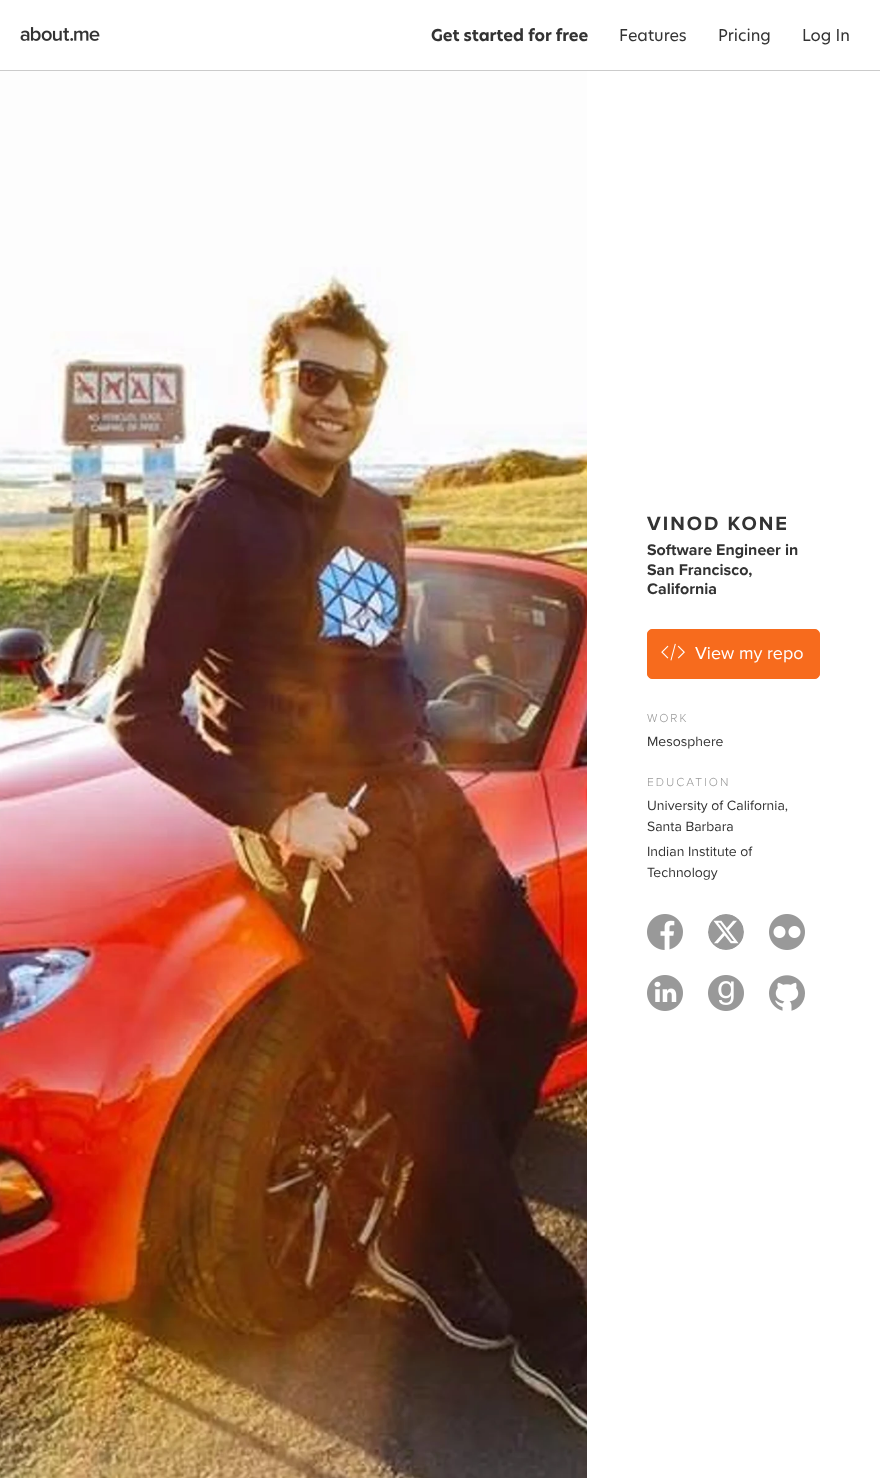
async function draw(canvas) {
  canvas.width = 880
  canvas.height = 1478
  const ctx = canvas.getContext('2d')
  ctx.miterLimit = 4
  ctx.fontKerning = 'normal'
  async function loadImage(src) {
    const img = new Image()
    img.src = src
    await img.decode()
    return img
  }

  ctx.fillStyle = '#fff'
  ctx.fillRect(0, 0, 880, 1478)
  ctx.fillStyle = '#cbcbcb'
  ctx.fillRect(0, 70, 880, 1)
  ctx.drawImage(await loadImage('image0.png'), 20, 27, 80, 14)
  ctx.font = 'bold 16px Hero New'
  ctx.fillStyle = '#333'
  ctx.fillText('Get started for free', 431, 41)
  ctx.font = '16px Hero New'
  ctx.fillText('Features', 619, 41)
  ctx.fillText('Pricing', 718, 41)
  ctx.fillText('Log In', 802, 41)
  ctx.drawImage(await loadImage('image1.png'), 0, 71, 587, 1407)
  ctx.letterSpacing = '2px'
  ctx.font = 'bold 20px Proxima Nova'
  ctx.fillText('VINOD KONE', 647, 530)
  ctx.letterSpacing = '0px'
  ctx.font = 'bold 16px Proxima Nova'
  ctx.fillText('Software Engineer in', 647, 555)
  ctx.fillText('San Francisco,', 647, 575)
  ctx.fillText('California', 647, 594)
  ctx.fillStyle = '#f76b1d'
  ctx.beginPath()
  ctx.roundRect(647.5, 629.5, 172, 49, 4.5)
  ctx.fill()
  ctx.strokeStyle = '#f76b1d'
  ctx.stroke()
  ctx.drawImage(await loadImage('image2.png'), 661, 643, 24, 18)
  ctx.font = '18px Proxima Nova'
  ctx.fillStyle = '#fff'
  ctx.fillText('View my repo', 695, 659)
  ctx.letterSpacing = '2px'
  ctx.font = '300 12px Proxima Nova'
  ctx.fillStyle = '#999'
  ctx.fillText('WORK', 647, 722)
  ctx.letterSpacing = '0px'
  ctx.font = '14px Proxima Nova'
  ctx.fillStyle = '#333'
  ctx.fillText('Mesosphere', 647, 746)
  ctx.letterSpacing = '2px'
  ctx.font = '300 12px Proxima Nova'
  ctx.fillStyle = '#999'
  ctx.fillText('EDUCATION', 647, 786)
  ctx.letterSpacing = '0px'
  ctx.font = '14px Proxima Nova'
  ctx.fillStyle = '#333'
  ctx.fillText('University of California,', 647, 810)
  ctx.fillText('Santa Barbara', 647, 831)
  ctx.fillText('Indian Institute of', 647, 856)
  ctx.fillText('Technology', 647, 877)
  ctx.drawImage(await loadImage('image3.png'), 647, 914, 36, 36)
  ctx.drawImage(await loadImage('image4.png'), 708, 914, 36, 36)
  ctx.drawImage(await loadImage('image5.png'), 769, 914, 36, 36)
  ctx.drawImage(await loadImage('image6.png'), 647, 975, 36, 36)
  ctx.drawImage(await loadImage('image7.png'), 708, 975, 36, 36)
  ctx.drawImage(await loadImage('image8.png'), 769, 975, 36, 36)
}

draw(document.querySelector('canvas'))
